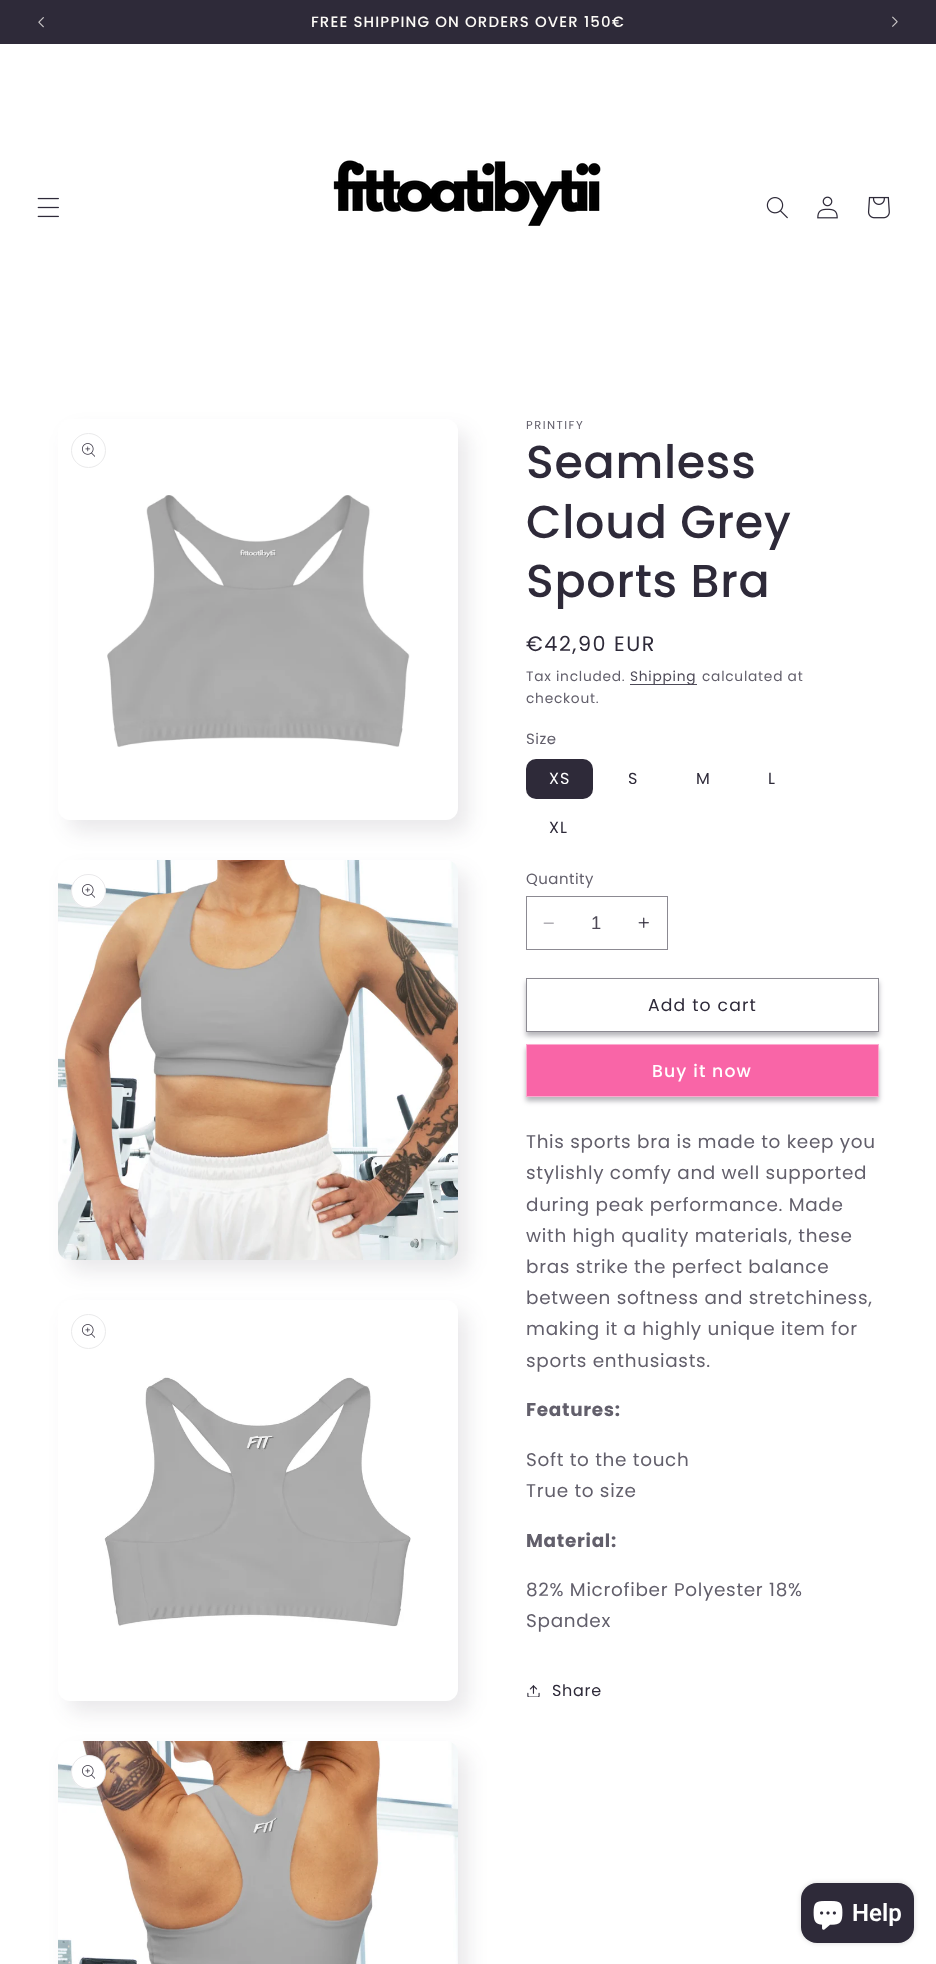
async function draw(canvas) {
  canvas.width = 936
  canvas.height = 1964
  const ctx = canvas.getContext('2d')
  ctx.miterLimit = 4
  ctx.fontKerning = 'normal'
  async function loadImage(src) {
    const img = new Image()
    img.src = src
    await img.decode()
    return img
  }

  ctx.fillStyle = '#fff'
  ctx.fillRect(0, 0, 936, 1964)
  ctx.fillStyle = '#2e2a39'
  ctx.fillRect(0, 0, 936, 44)
  ctx.drawImage(await loadImage('image0.png'), 38, 17, 6, 11)
  ctx.letterSpacing = '1.15px'
  ctx.font = '500 14.95px Poppins'
  ctx.fillStyle = '#fdfbf7'
  ctx.fillText('FREE SHIPPING ON ORDERS OVER 150€', 311, 27)
  ctx.drawImage(await loadImage('image1.png'), 892, 16, 6, 11)
  ctx.drawImage(await loadImage('image2.png'), 37, 197, 22, 21)
  ctx.drawImage(await loadImage('image3.png'), 333, 160, 268, 66)
  ctx.drawImage(await loadImage('image4.png'), 766, 197, 22, 22)
  ctx.drawImage(await loadImage('image5.png'), 817, 196, 21, 23)
  ctx.drawImage(await loadImage('image6.png'), 867, 196, 23, 23)
  ctx.fillStyle = '#2e2a391a'
  ctx.filter = 'blur(10px)'
  ctx.beginPath()
  ctx.roundRect(68, 431, 400, 401, 12)
  ctx.fill()
  ctx.filter = 'none'
  ctx.fillStyle = '#fff'
  ctx.beginPath()
  ctx.roundRect(58, 419, 400, 401, 12)
  ctx.fill()
  ctx.beginPath()
  ctx.arc(88.5, 450.5, 17, 0, 2 * Math.PI)
  ctx.strokeStyle = '#eaeaeb'
  ctx.stroke()
  ctx.drawImage(await loadImage('image7.png'), 82, 443, 13, 14)
  ctx.drawImage(await loadImage('image8.png'), 107, 495, 303, 252)
  ctx.fillStyle = '#2e2a391a'
  ctx.filter = 'blur(10px)'
  ctx.beginPath()
  ctx.roundRect(68, 872, 400, 400, 12)
  ctx.fill()
  ctx.filter = 'none'
  ctx.drawImage(await loadImage('image9.png'), 58, 860, 400, 400)
  ctx.fillStyle = '#fff'
  ctx.beginPath()
  ctx.roundRect(71, 874, 35, 34, 17)
  ctx.fill()
  ctx.beginPath()
  ctx.roundRect(71.5, 874.5, 34, 33, 16.5)
  ctx.strokeStyle = '#2e2a391a'
  ctx.stroke()
  ctx.drawImage(await loadImage('image7.png'), 82, 884, 13, 14)
  ctx.fillStyle = '#2e2a391a'
  ctx.filter = 'blur(10px)'
  ctx.beginPath()
  ctx.roundRect(68, 1312, 400, 401, 12)
  ctx.fill()
  ctx.filter = 'none'
  ctx.fillStyle = '#fff'
  ctx.beginPath()
  ctx.roundRect(58, 1300, 400, 401, 12)
  ctx.fill()
  ctx.beginPath()
  ctx.arc(88.5, 1331.5, 17, 0, 2 * Math.PI)
  ctx.strokeStyle = '#eaeaeb'
  ctx.stroke()
  ctx.drawImage(await loadImage('image7.png'), 82, 1324, 13, 14)
  ctx.drawImage(await loadImage('image10.png'), 104, 1377, 307, 250)
  ctx.fillStyle = '#2e2a391a'
  ctx.filter = 'blur(10px)'
  ctx.beginPath()
  ctx.roundRect(68, 1753, 400, 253, 12)
  ctx.fill()
  ctx.filter = 'none'
  ctx.drawImage(await loadImage('image11.png'), 58, 1741, 400, 223)
  ctx.fillStyle = '#fff'
  ctx.beginPath()
  ctx.roundRect(71, 1755, 35, 34, 17)
  ctx.fill()
  ctx.beginPath()
  ctx.roundRect(71.5, 1755.5, 34, 33, 16.5)
  ctx.strokeStyle = '#2e2a391a'
  ctx.stroke()
  ctx.drawImage(await loadImage('image7.png'), 82, 1765, 13, 14)
  ctx.letterSpacing = '1.5px'
  ctx.font = '11.5px Poppins'
  ctx.fillStyle = '#625f6b'
  ctx.fillText('PRINTIFY', 526, 429)
  ctx.letterSpacing = '0.7px'
  ctx.font = '500 46px Poppins'
  ctx.fillStyle = '#2e2a39'
  ctx.fillText('Seamless', 526, 478)
  ctx.fillText('Cloud Grey', 526, 538)
  ctx.fillText('Sports Bra', 526, 597)
  ctx.letterSpacing = '1.5px'
  ctx.font = '20.75px Poppins'
  ctx.fillText('€42,90 EUR', 526, 651)
  ctx.letterSpacing = '0.75px'
  ctx.font = '13.75px Poppins'
  ctx.fillStyle = '#625f6b'
  ctx.fillText('Tax included.', 526, 681)
  ctx.fillStyle = '#4d4a57'
  ctx.fillRect(630, 684, 67, 1)
  ctx.fillStyle = '#4d4956'
  ctx.fillText('Shipping', 630, 681)
  ctx.fillStyle = '#625f6b'
  ctx.fillText('calculated at', 702, 681)
  ctx.fillText('checkout.', 526, 703)
  ctx.letterSpacing = '0.5px'
  ctx.font = '14.95px Poppins'
  ctx.fillText('Size', 526, 744)
  ctx.fillStyle = '#2e2a39'
  ctx.beginPath()
  ctx.roundRect(526, 759, 67, 40, 10)
  ctx.fill()
  ctx.letterSpacing = '1.15px'
  ctx.font = '16px Poppins'
  ctx.fillStyle = '#fff'
  ctx.fillText('XS', 549, 784)
  ctx.fillStyle = '#2e2a39'
  ctx.fillText('S', 628, 784)
  ctx.fillText('M', 696, 784)
  ctx.fillText('L', 768, 784)
  ctx.fillText('XL', 549, 833)
  ctx.letterSpacing = '0.5px'
  ctx.font = '14.95px Poppins'
  ctx.fillStyle = '#625f6b'
  ctx.fillText('Quantity', 526, 884)
  ctx.drawImage(await loadImage('image12.png'), 543, 922, 11, 2)
  ctx.drawImage(await loadImage('image13.png'), 638, 917, 11, 11)
  ctx.strokeStyle = '#8c8a92'
  ctx.strokeRect(526.5, 896.5, 141, 53)
  ctx.letterSpacing = '0px'
  ctx.font = '18.4px Liberation Sans'
  ctx.fillStyle = '#4d4956'
  ctx.fillText('1', 591, 929)
  ctx.save()
  ctx.beginPath()
  ctx.moveTo(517, 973)
  ctx.lineTo(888, 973)
  ctx.lineTo(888, 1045)
  ctx.lineTo(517, 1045)
  ctx.closePath()
  ctx.moveTo(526, 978)
  ctx.lineTo(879, 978)
  ctx.lineTo(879, 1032)
  ctx.lineTo(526, 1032)
  ctx.closePath()
  ctx.clip('evenodd')
  ctx.fillStyle = '#2e2a3959'
  ctx.filter = 'blur(2.5px)'
  ctx.beginPath()
  ctx.rect(526, 982, 353, 54)
  ctx.fill()
  ctx.filter = 'none'
  ctx.restore()
  ctx.strokeRect(526.5, 978.5, 352, 53)
  ctx.letterSpacing = '1.15px'
  ctx.font = '17.25px Poppins'
  ctx.fillStyle = '#2e2a39'
  ctx.fillText('Add to cart', 648, 1011)
  ctx.fillStyle = '#2e2a3959'
  ctx.filter = 'blur(2.5px)'
  ctx.beginPath()
  ctx.rect(526, 1048, 353, 53)
  ctx.fill()
  ctx.filter = 'none'
  ctx.fillStyle = '#f965a7'
  ctx.fillRect(527, 1045, 351, 51)
  ctx.strokeStyle = '#fcaacf'
  ctx.strokeRect(526.5, 1044.5, 352, 52)
  ctx.font = '500 17.25px Poppins'
  ctx.fillStyle = '#fff'
  ctx.fillText('Buy it now', 652, 1077)
  ctx.letterSpacing = '0.7px'
  ctx.font = '18.4px Poppins'
  ctx.fillStyle = '#625f6b'
  ctx.fillText('This sports bra is made to keep you', 526, 1148)
  ctx.fillText('stylishly comfy and well supported', 526, 1179)
  ctx.fillText('during peak performance. Made', 526, 1211)
  ctx.fillText('with high quality materials, these', 526, 1242)
  ctx.fillText('bras strike the perfect balance', 526, 1273)
  ctx.fillText('between softness and stretchiness,', 526, 1304)
  ctx.fillText('making it a highly unique item for', 526, 1335)
  ctx.fillText('sports enthusiasts.', 526, 1367)
  ctx.font = 'bold 18.4px Poppins'
  ctx.fillText('Features:', 526, 1416)
  ctx.font = '18.4px Poppins'
  ctx.fillText('Soft to the touch', 526, 1466)
  ctx.fillText('True to size', 526, 1497)
  ctx.font = 'bold 18.4px Poppins'
  ctx.fillText('Material:', 526, 1547)
  ctx.font = '18.4px Poppins'
  ctx.fillText('82% Microfiber Polyester 18%', 526, 1596)
  ctx.fillText('Spandex', 526, 1627)
  ctx.drawImage(await loadImage('image14.png'), 527, 1685, 13, 12)
  ctx.font = '16px Poppins'
  ctx.fillStyle = '#2e2a39'
  ctx.fillText('Share', 552, 1696)
  ctx.fillStyle = '#00000026'
  ctx.filter = 'blur(2.5px)'
  ctx.beginPath()
  ctx.roundRect(801, 1883, 113, 60, 16)
  ctx.fill()
  ctx.filter = 'none'
  ctx.fillStyle = '#2e2a39'
  ctx.beginPath()
  ctx.roundRect(801, 1883, 113, 60, 16)
  ctx.fill()
  ctx.drawImage(await loadImage('image15.png'), 813, 1901, 30, 29)
  ctx.letterSpacing = '0px'
  ctx.font = '600 24px Roboto'
  ctx.fillStyle = '#fff'
  ctx.fillText('Help', 852, 1921)
}

draw(document.querySelector('canvas'))
